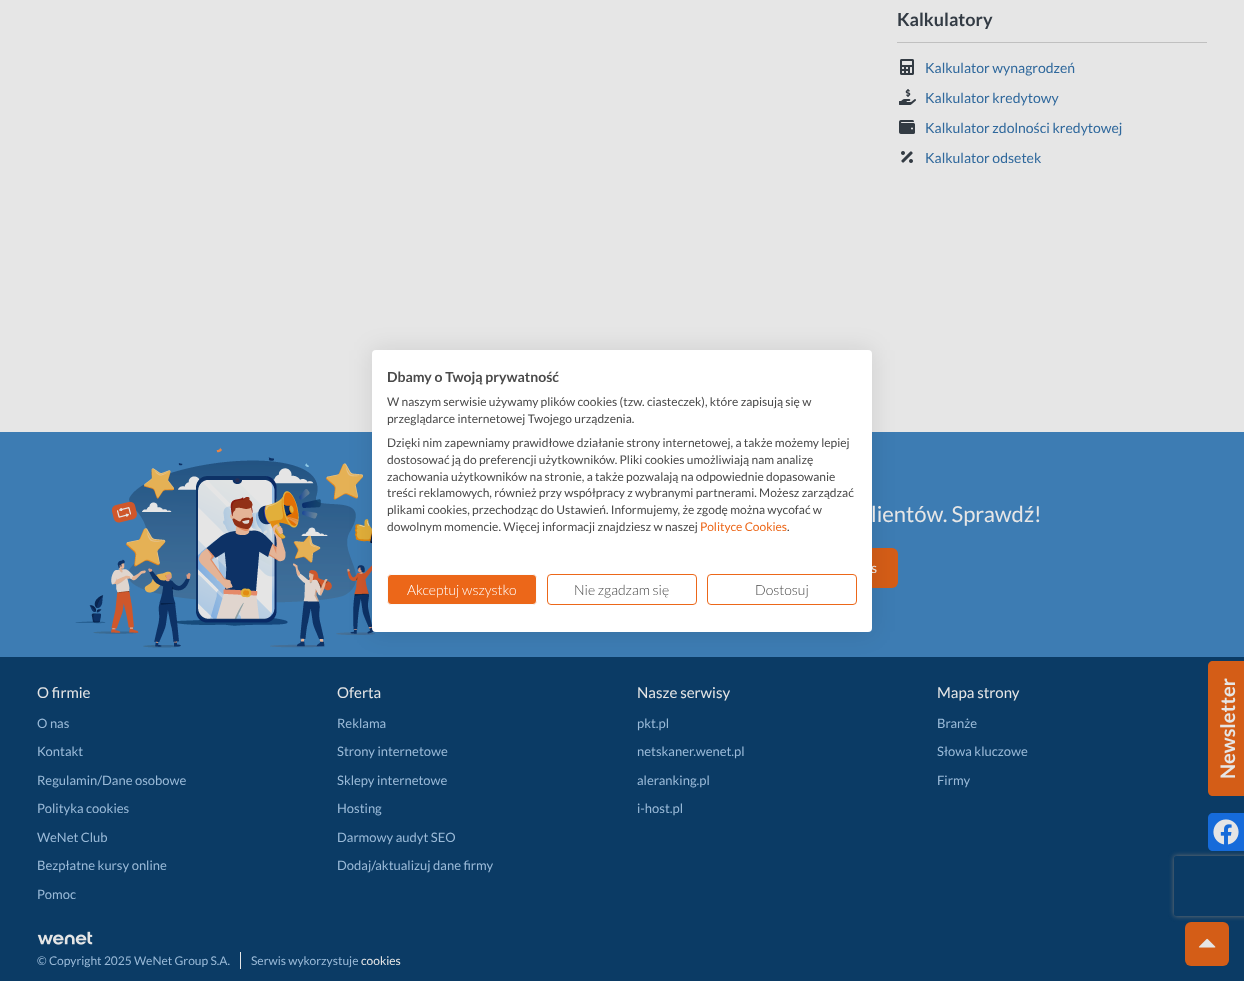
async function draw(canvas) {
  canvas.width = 1244
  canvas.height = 981
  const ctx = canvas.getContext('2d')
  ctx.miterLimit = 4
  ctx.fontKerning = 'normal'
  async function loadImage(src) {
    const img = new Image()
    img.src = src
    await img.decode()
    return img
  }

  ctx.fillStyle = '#e6e6e6'
  ctx.fillRect(0, 0, 1244, 981)
  ctx.fillStyle = '#c0c0c0'
  ctx.fillRect(897, 42, 310, 1)
  ctx.font = 'bold 18px Lato'
  ctx.fillStyle = '#333b44'
  ctx.fillText('Kalkulatory', 897, 26)
  ctx.drawImage(await loadImage('image0.png'), 900, 59, 14, 16)
  ctx.font = '14px Lato'
  ctx.fillStyle = '#2f689c'
  ctx.fillText('Kalkulator wynagrodzeń', 925, 73)
  ctx.drawImage(await loadImage('image1.png'), 899, 89, 17, 16)
  ctx.fillText('Kalkulator kredytowy', 925, 103)
  ctx.drawImage(await loadImage('image2.png'), 899, 120, 16, 14)
  ctx.fillText('Kalkulator zdolności kredytowej', 925, 133)
  ctx.drawImage(await loadImage('image3.png'), 901, 151, 12, 12)
  ctx.fillText('Kalkulator odsetek', 925, 163)
  ctx.fillStyle = '#3d7cb3'
  ctx.fillRect(0, 432, 1244, 225)
  ctx.drawImage(await loadImage('image4.png'), 75, 447, 300, 201)
  ctx.fillStyle = '#d45d17'
  ctx.beginPath()
  ctx.roundRect(746, 548, 152, 40, 6)
  ctx.fill()
  ctx.fillStyle = '#0b3b65'
  ctx.fillRect(0, 657, 1244, 324)
  ctx.fillStyle = '#0000001a'
  ctx.filter = 'blur(12px)'
  ctx.beginPath()
  ctx.roundRect(372, 350, 500, 282, 4)
  ctx.fill()
  ctx.filter = 'none'
  ctx.fillStyle = '#e6e6e6'
  ctx.fillText('s', 871, 573)
  ctx.fillStyle = '#fff'
  ctx.beginPath()
  ctx.roundRect(372, 350, 500, 282, 4)
  ctx.fill()
  ctx.font = 'bold 14px Lato'
  ctx.fillStyle = '#4a4a4a'
  ctx.fillText('Dbamy o Twoją prywatność', 387, 382)
  ctx.font = '12px Lato'
  ctx.fillText('W naszym serwisie używamy plików cookies (tzw. ciasteczek), które zapisują się w', 387, 406)
  ctx.fillText('przeglądarce internetowej Twojego urządzenia.', 387, 423)
  ctx.fillText('Dzięki nim zapewniamy prawidłowe działanie strony internetowej, a także możemy lepiej', 387, 447)
  ctx.fillText('dostosować ją do preferencji użytkowników. Pliki cookies umożliwiają nam analizę', 387, 464)
  ctx.fillText('zachowania użytkowników na stronie, a także pozwalają na odpowiednie dopasowanie', 387, 481)
  ctx.fillText('treści reklamowych, również przy współpracy z wybranymi partnerami. Możesz zarządzać', 387, 497)
  ctx.fillText('plikami cookies, przechodząc do Ustawień. Informujemy, że zgodę można wycofać w', 387, 514)
  ctx.fillText('dowolnym momencie. Więcej informacji znajdziesz w naszej', 387, 531)
  ctx.fillStyle = '#ec6719'
  ctx.fillText('Polityce Cookies', 700, 531)
  ctx.fillStyle = '#4a4a4a'
  ctx.fillText('.', 787, 531)
  ctx.fillStyle = '#ec6719'
  ctx.beginPath()
  ctx.roundRect(387.5, 574.5, 149, 30, 3.5)
  ctx.fill()
  ctx.strokeStyle = '#fafbfb'
  ctx.stroke()
  ctx.font = '300 14px Lato'
  ctx.fillStyle = '#fff'
  ctx.fillText('Akceptuj wszystko', 407, 595)
  ctx.beginPath()
  ctx.roundRect(547.5, 574.5, 149, 30, 3.5)
  ctx.strokeStyle = '#ec6719'
  ctx.stroke()
  ctx.fillStyle = '#4a4a4a'
  ctx.fillText('Nie zgadzam się', 574, 595)
  ctx.beginPath()
  ctx.roundRect(707.5, 574.5, 149, 30, 3.5)
  ctx.stroke()
  ctx.fillText('Dostosuj', 755, 595)
  ctx.font = '22px Lato'
  ctx.fillStyle = '#e6e6e6'
  ctx.fillText('lientów. Sprawdź!', 871, 522)
  ctx.font = '15px Lato'
  ctx.fillText('O firmie', 37, 698)
  ctx.font = '13px Lato'
  ctx.fillStyle = '#9abad8'
  ctx.fillText('O nas', 37, 728)
  ctx.fillText('Kontakt', 37, 756)
  ctx.fillText('Regulamin/Dane osobowe', 37, 785)
  ctx.fillText('Polityka cookies', 37, 813)
  ctx.fillText('WeNet Club', 37, 842)
  ctx.fillText('Bezpłatne kursy online', 37, 870)
  ctx.fillText('Pomoc', 37, 899)
  ctx.font = '15px Lato'
  ctx.fillStyle = '#e6e6e6'
  ctx.fillText('Oferta', 337, 698)
  ctx.font = '13px Lato'
  ctx.fillStyle = '#9abad8'
  ctx.fillText('Reklama', 337, 728)
  ctx.fillText('Strony internetowe', 337, 756)
  ctx.fillText('Sklepy internetowe', 337, 785)
  ctx.fillText('Hosting', 337, 813)
  ctx.fillText('Darmowy audyt SEO', 337, 842)
  ctx.fillText('Dodaj/aktualizuj dane firmy', 337, 870)
  ctx.font = '15px Lato'
  ctx.fillStyle = '#e6e6e6'
  ctx.fillText('Nasze serwisy', 637, 698)
  ctx.font = '13px Lato'
  ctx.fillStyle = '#9abad8'
  ctx.fillText('pkt.pl', 637, 728)
  ctx.fillText('netskaner.wenet.pl', 637, 756)
  ctx.fillText('aleranking.pl', 637, 785)
  ctx.fillText('i-host.pl', 637, 813)
  ctx.font = '15px Lato'
  ctx.fillStyle = '#e6e6e6'
  ctx.fillText('Mapa strony', 937, 698)
  ctx.font = '13px Lato'
  ctx.fillStyle = '#9abad8'
  ctx.fillText('Branże', 937, 728)
  ctx.fillText('Słowa kluczowe', 937, 756)
  ctx.fillText('Firmy', 937, 785)
  ctx.drawImage(await loadImage('image5.png'), 37, 931, 56, 14)
  ctx.font = '12px Lato'
  ctx.fillText('© Copyright 2025 WeNet Group S.A.', 37, 965)
  ctx.fillStyle = '#e6e6e6'
  ctx.fillRect(240, 952, 1, 17)
  ctx.fillStyle = '#9abad8'
  ctx.fillText('Serwis wykorzystuje', 251, 965)
  ctx.fillStyle = '#e6e6e6'
  ctx.fillText('cookies', 361, 965)
  ctx.fillStyle = '#d45d17'
  ctx.beginPath()
  ctx.moveTo(1213, 661)
  ctx.lineTo(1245, 661)
  ctx.lineTo(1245, 796)
  ctx.lineTo(1213, 796)
  ctx.bezierCurveTo(1210, 796, 1208, 794, 1208, 791)
  ctx.lineTo(1208, 666)
  ctx.bezierCurveTo(1208, 663, 1210, 661, 1213, 661)
  ctx.closePath()
  ctx.fill()
  ctx.font = 'bold 20px Lato'
  ctx.fillStyle = '#e6e6e6'
  ctx.save()
  ctx.translate(1235, 779)
  ctx.rotate(-90 * Math.PI / 180)
  ctx.fillText('Newsletter', 0, 0)
  ctx.restore()
  ctx.save()
  ctx.beginPath()
  ctx.moveTo(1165, 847)
  ctx.lineTo(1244, 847)
  ctx.lineTo(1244, 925)
  ctx.lineTo(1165, 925)
  ctx.closePath()
  ctx.moveTo(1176, 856)
  ctx.lineTo(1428, 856)
  ctx.bezierCurveTo(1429, 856, 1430, 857, 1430, 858)
  ctx.lineTo(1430, 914)
  ctx.bezierCurveTo(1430, 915, 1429, 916, 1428, 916)
  ctx.lineTo(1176, 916)
  ctx.bezierCurveTo(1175, 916, 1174, 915, 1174, 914)
  ctx.lineTo(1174, 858)
  ctx.bezierCurveTo(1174, 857, 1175, 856, 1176, 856)
  ctx.closePath()
  ctx.clip('evenodd')
  ctx.fillStyle = '#737373'
  ctx.filter = 'blur(2.5px)'
  ctx.beginPath()
  ctx.roundRect(1174, 856, 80, 60, 2)
  ctx.fill()
  ctx.filter = 'none'
  ctx.restore()
  ctx.fillStyle = '#166bda'
  ctx.beginPath()
  ctx.moveTo(1213, 813)
  ctx.lineTo(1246, 813)
  ctx.lineTo(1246, 851)
  ctx.lineTo(1213, 851)
  ctx.bezierCurveTo(1210, 851, 1208, 849, 1208, 846)
  ctx.lineTo(1208, 818)
  ctx.bezierCurveTo(1208, 815, 1210, 813, 1213, 813)
  ctx.closePath()
  ctx.fill()
  ctx.drawImage(await loadImage('image6.png'), 1213, 819, 26, 26)
  ctx.fillStyle = '#d45d17'
  ctx.beginPath()
  ctx.roundRect(1185, 922, 44, 44, 6)
  ctx.fill()
  ctx.drawImage(await loadImage('image7.png'), 1198, 938, 18, 10)
}

draw(document.querySelector('canvas'))
